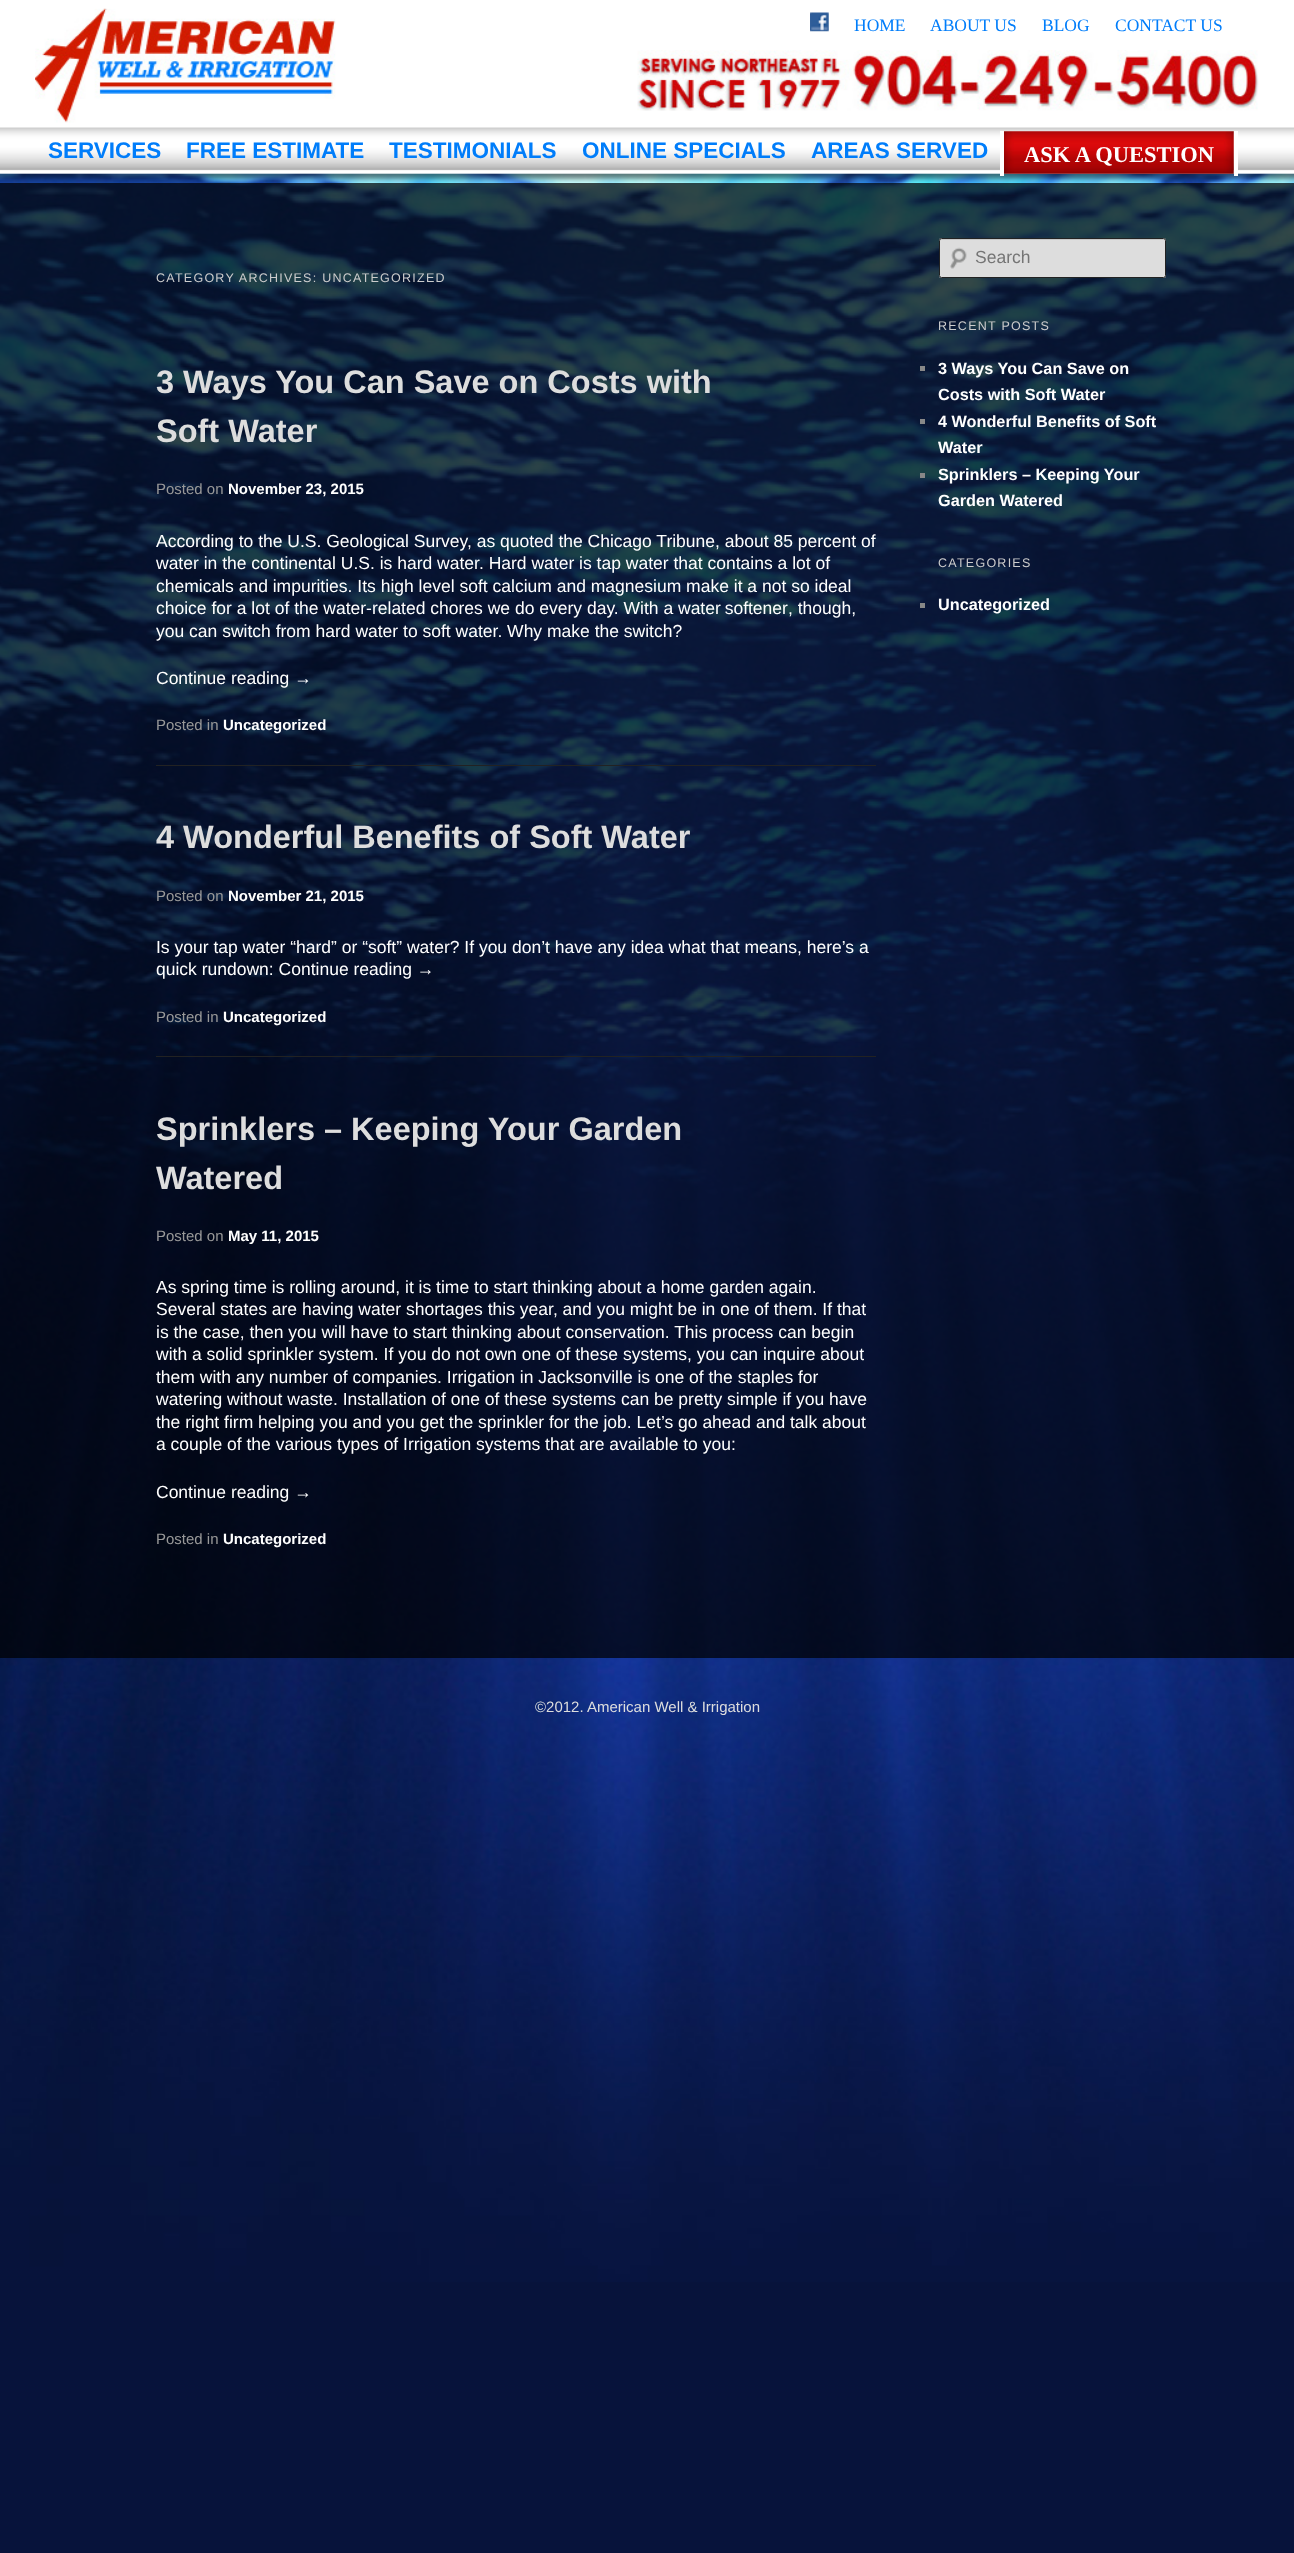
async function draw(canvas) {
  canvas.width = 1294
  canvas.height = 2553
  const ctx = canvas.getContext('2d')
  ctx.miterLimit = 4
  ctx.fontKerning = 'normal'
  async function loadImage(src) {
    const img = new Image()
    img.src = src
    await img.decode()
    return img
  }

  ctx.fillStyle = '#07133b'
  ctx.fillRect(0, 0, 1294, 2553)
  ctx.drawImage(await loadImage('image0.png'), 0, 173, 1294, 2109)
  ctx.drawImage(await loadImage('image1.png'), 0, 0, 1294, 183)
  ctx.drawImage(await loadImage('image2.png'), 35, 8, 301, 115)
  ctx.drawImage(await loadImage('image3.png'), 810, 12, 19, 20)
  ctx.font = '17.5px Liberation Serif'
  ctx.fillStyle = '#007dfa'
  ctx.fillText('HOME', 854, 31)
  ctx.fillText('ABOUT US', 930, 31)
  ctx.fillText('BLOG', 1042, 31)
  ctx.fillText('CONTACT US', 1115, 31)
  ctx.drawImage(await loadImage('image4.png'), 637, 50, 622, 61)
  ctx.font = 'bold 22.5px Liberation Sans'
  ctx.fillText('SERVICES', 48, 158)
  ctx.fillText('FREE ESTIMATE', 186, 158)
  ctx.fillText('TESTIMONIALS', 389, 158)
  ctx.fillText('ONLINE SPECIALS', 582, 158)
  ctx.fillText('AREAS SERVED', 811, 158)
  ctx.drawImage(await loadImage('image5.png'), 1004, 131, 230, 43)
  ctx.fillStyle = '#fff'
  ctx.fillRect(1234, 131, 4, 45)
  ctx.fillRect(1000, 131, 4, 45)
  ctx.font = 'bold 22.5px Liberation Serif'
  ctx.fillText('ASK A QUESTION', 1024, 162)
  ctx.fillStyle = '#000000b8'
  ctx.fillRect(0, 183, 1294, 1475)
  ctx.letterSpacing = '1.25px'
  ctx.font = '12.5px Liberation Sans'
  ctx.fillStyle = '#ccc'
  ctx.fillText('CATEGORY ARCHIVES: UNCATEGORIZED', 156, 282)
  ctx.fillStyle = '#222'
  ctx.fillRect(156, 765, 720, 1)
  ctx.letterSpacing = '0px'
  ctx.font = 'bold 32.5px Liberation Sans'
  ctx.fillStyle = '#ddd'
  ctx.fillText('3 Ways You Can Save on Costs with', 156, 393)
  ctx.fillText('Soft Water', 156, 442)
  ctx.font = '15px Liberation Sans'
  ctx.fillStyle = '#999'
  ctx.fillText('Posted on', 156, 494)
  ctx.font = 'bold 15px Liberation Sans'
  ctx.fillStyle = '#fff'
  ctx.fillText('November 23, 2015', 228, 494)
  ctx.font = '17.5px Liberation Sans'
  ctx.fillText('According to the U.S. Geological Survey, as quoted the Chicago Tribune, about 85 percent of', 156, 547)
  ctx.fillText('water in the continental U.S. is hard water. Hard water is tap water that contains a lot of', 156, 569)
  ctx.fillText('chemicals and impurities. Its high level soft calcium and magnesium make it a not so ideal', 156, 592)
  ctx.fillText('choice for a lot of the water-related chores we do every day. With a', 156, 614)
  ctx.wordSpacing = '-1px'
  ctx.fillText('water softener', 678, 614)
  ctx.wordSpacing = '0px'
  ctx.fillText(', though,', 788, 614)
  ctx.fillText('you can switch from hard water to soft water. Why make the switch?', 156, 637)
  ctx.fillText('Continue reading →', 156, 684)
  ctx.font = '15px Liberation Sans'
  ctx.fillStyle = '#999'
  ctx.fillText('Posted in', 156, 730)
  ctx.font = 'bold 15px Liberation Sans'
  ctx.fillStyle = '#fff'
  ctx.fillText('Uncategorized', 223, 730)
  ctx.fillStyle = '#222'
  ctx.fillRect(156, 1056, 720, 1)
  ctx.font = 'bold 32.5px Liberation Sans'
  ctx.fillStyle = '#ddd'
  ctx.fillText('4 Wonderful Benefits of Soft Water', 156, 848)
  ctx.font = '15px Liberation Sans'
  ctx.fillStyle = '#999'
  ctx.fillText('Posted on', 156, 901)
  ctx.font = 'bold 15px Liberation Sans'
  ctx.fillStyle = '#fff'
  ctx.fillText('November 21, 2015', 228, 901)
  ctx.font = '17.5px Liberation Sans'
  ctx.fillText('Is your tap water “hard” or “soft” water? If you don’t have any idea what that means, here’s a', 156, 953)
  ctx.fillText('quick rundown: Continue reading →', 156, 975)
  ctx.font = '15px Liberation Sans'
  ctx.fillStyle = '#999'
  ctx.fillText('Posted in', 156, 1022)
  ctx.font = 'bold 15px Liberation Sans'
  ctx.fillStyle = '#fff'
  ctx.fillText('Uncategorized', 223, 1022)
  ctx.font = 'bold 32.5px Liberation Sans'
  ctx.fillStyle = '#ddd'
  ctx.fillText('Sprinklers – Keeping Your Garden', 156, 1140)
  ctx.fillText('Watered', 156, 1189)
  ctx.font = '15px Liberation Sans'
  ctx.fillStyle = '#999'
  ctx.fillText('Posted on', 156, 1241)
  ctx.font = 'bold 15px Liberation Sans'
  ctx.fillStyle = '#fff'
  ctx.fillText('May 11, 2015', 228, 1241)
  ctx.font = '17.5px Liberation Sans'
  ctx.fillText('As spring time is rolling around, it is time to start thinking about a home garden again.', 156, 1293)
  ctx.fillText('Several states are having water shortages this year, and you might be in one of them. If that', 156, 1315)
  ctx.fillText('is the case, then you will have to start thinking about conservation. This process can begin', 156, 1338)
  ctx.fillText('with a solid sprinkler system. If you do not own one of these systems, you can inquire about', 156, 1360)
  ctx.fillText('them with any number of companies. Irrigation in Jacksonville is one of the staples for', 156, 1383)
  ctx.fillText('watering without waste. Installation of one of these systems can be pretty simple if you have', 156, 1405)
  ctx.fillText('the right firm helping you and you get the sprinkler for the job. Let’s go ahead and talk about', 156, 1428)
  ctx.fillText('a couple of the various types of Irrigation systems that are available to you:', 156, 1450)
  ctx.fillText('Continue reading →', 156, 1498)
  ctx.font = '15px Liberation Sans'
  ctx.fillStyle = '#999'
  ctx.fillText('Posted in', 156, 1544)
  ctx.font = 'bold 15px Liberation Sans'
  ctx.fillStyle = '#fff'
  ctx.fillText('Uncategorized', 223, 1544)
  ctx.fillStyle = '#ddd'
  ctx.beginPath()
  ctx.roundRect(939, 238, 227, 40, 2.5)
  ctx.fill()
  ctx.drawImage(await loadImage('image6.png'), 950, 247, 17, 22)
  ctx.fillStyle = '#c7c7c7'
  ctx.beginPath()
  ctx.moveTo(941, 240)
  ctx.lineTo(1164, 240)
  ctx.lineTo(1165, 241)
  ctx.lineTo(1165, 239)
  ctx.lineTo(941, 239)
  ctx.bezierCurveTo(940, 239, 940, 240, 940, 241)
  ctx.closePath()
  ctx.fill()
  ctx.beginPath()
  ctx.roundRect(939.5, 238.5, 226, 39, 2)
  ctx.strokeStyle = '#222'
  ctx.stroke()
  ctx.font = '17.5px Liberation Sans'
  ctx.fillStyle = '#757575'
  ctx.fillText('Search', 975, 263)
  ctx.letterSpacing = '1.25px'
  ctx.font = '12.5px Liberation Sans'
  ctx.fillStyle = '#ccc'
  ctx.fillText('RECENT POSTS', 938, 330)
  ctx.fillStyle = '#888'
  ctx.fillRect(920, 366, 5, 5)
  ctx.letterSpacing = '0px'
  ctx.font = 'bold 16.25px Liberation Sans'
  ctx.fillStyle = '#fff'
  ctx.fillText('3 Ways You Can Save on', 938, 374)
  ctx.fillText('Costs with Soft Water', 938, 400)
  ctx.fillStyle = '#888'
  ctx.fillRect(920, 419, 5, 5)
  ctx.fillStyle = '#fff'
  ctx.fillText('4 Wonderful Benefits of Soft', 938, 427)
  ctx.fillText('Water', 938, 453)
  ctx.fillStyle = '#888'
  ctx.fillRect(920, 473, 5, 5)
  ctx.fillStyle = '#fff'
  ctx.fillText('Sprinklers – Keeping Your', 938, 480)
  ctx.fillText('Garden Watered', 938, 506)
  ctx.letterSpacing = '1.25px'
  ctx.font = '12.5px Liberation Sans'
  ctx.fillStyle = '#ccc'
  ctx.fillText('CATEGORIES', 938, 567)
  ctx.fillStyle = '#888'
  ctx.fillRect(920, 603, 5, 5)
  ctx.letterSpacing = '0px'
  ctx.font = 'bold 16.25px Liberation Sans'
  ctx.fillStyle = '#fff'
  ctx.fillText('Uncategorized', 938, 610)
  ctx.font = '15px Liberation Sans'
  ctx.fillStyle = '#ddd'
  ctx.fillText('©2012. American Well & Irrigation', 535, 1712)
}

draw(document.querySelector('canvas'))
